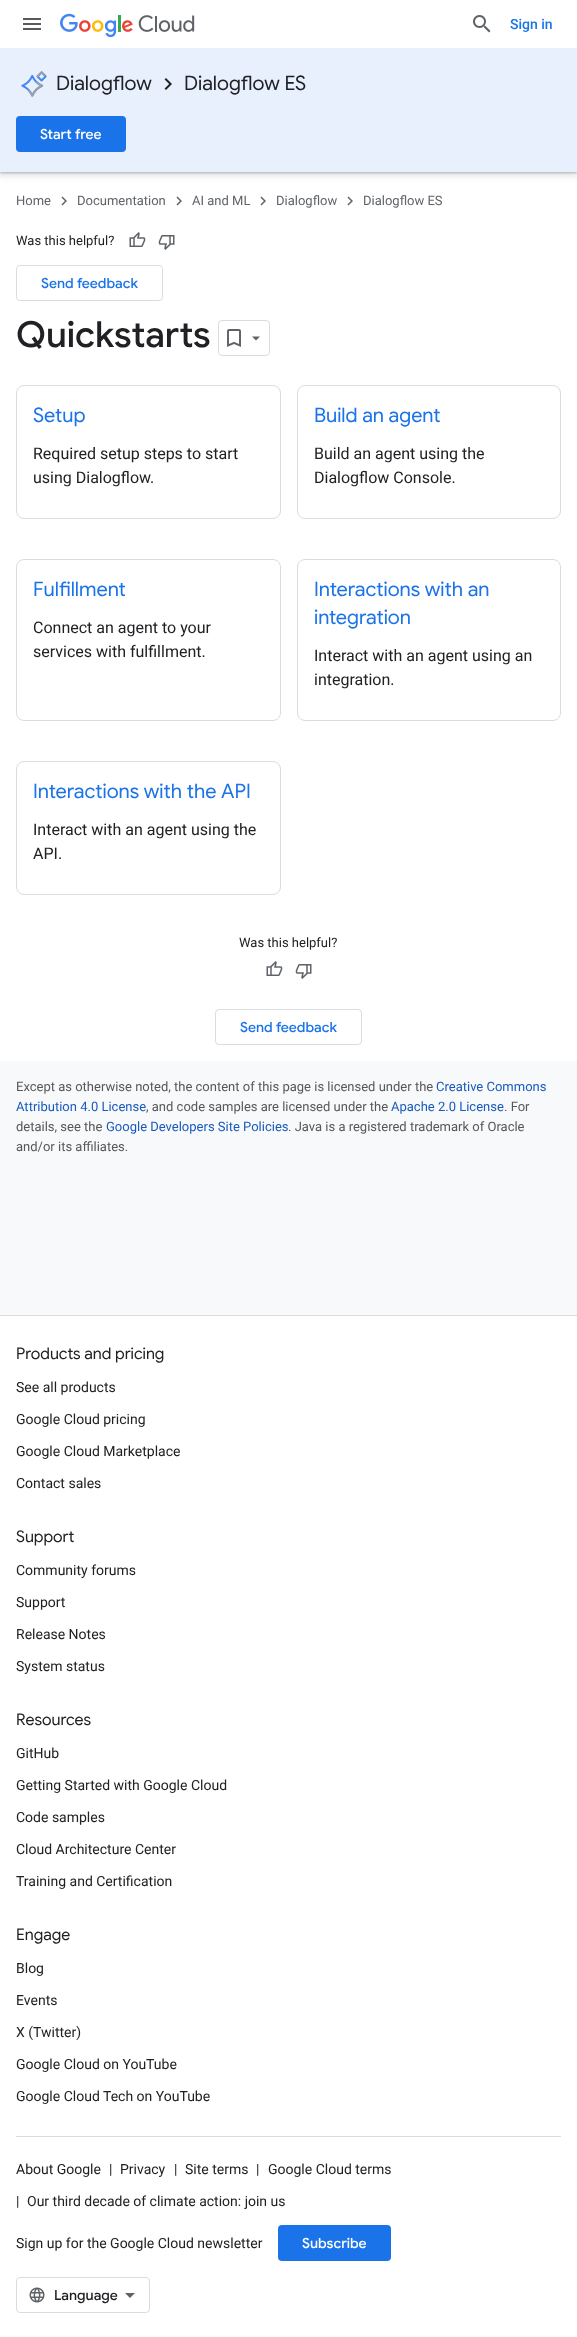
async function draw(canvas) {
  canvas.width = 577
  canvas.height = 2337
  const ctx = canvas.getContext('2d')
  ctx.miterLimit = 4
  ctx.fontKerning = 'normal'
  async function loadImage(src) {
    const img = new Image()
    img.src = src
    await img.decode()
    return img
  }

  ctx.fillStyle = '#f8f9fa'
  ctx.fillRect(0, 0, 577, 2337)
  ctx.fillStyle = '#fff'
  ctx.fillRect(0, 172, 577, 889)
  ctx.fillStyle = '#3c404326'
  ctx.filter = 'blur(3px)'
  ctx.beginPath()
  ctx.rect(-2, 48, 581, 128)
  ctx.fill()
  ctx.filter = 'none'
  ctx.fillStyle = '#3c40434d'
  ctx.filter = 'blur(1px)'
  ctx.beginPath()
  ctx.rect(0, 49, 577, 124)
  ctx.fill()
  ctx.filter = 'none'
  ctx.fillStyle = '#fff'
  ctx.fillRect(0, 0, 577, 48)
  ctx.drawImage(await loadImage('image0.png'), 23, 18, 18, 12)
  ctx.drawImage(await loadImage('image1.png'), 60, 13, 135, 25)
  ctx.drawImage(await loadImage('image2.png'), 473, 15, 18, 18)
  ctx.font = '500 14px Roboto'
  ctx.fillStyle = '#1a73e8'
  ctx.fillText('Sign in', 510, 29)
  ctx.fillStyle = '#e8f0fe'
  ctx.fillRect(0, 48, 577, 124)
  ctx.drawImage(await loadImage('image3.png'), 21, 71, 26, 26)
  ctx.font = '20px Google Sans'
  ctx.fillStyle = '#202124'
  ctx.fillText('Dialogflow', 56, 90)
  ctx.drawImage(await loadImage('image4.png'), 164, 78, 8, 12)
  ctx.fillText('Dialogflow ES', 184, 90)
  ctx.fillStyle = '#1a73e8'
  ctx.beginPath()
  ctx.roundRect(16, 116, 110, 36, 4)
  ctx.fill()
  ctx.font = '500 14px Google Sans'
  ctx.fillStyle = '#fff'
  ctx.fillText('Start free', 40, 139)
  ctx.font = '13px Roboto'
  ctx.fillStyle = '#5f6368'
  ctx.fillText('Home', 16, 205)
  ctx.drawImage(await loadImage('image5.png'), 61, 196, 6, 10)
  ctx.fillText('Documentation', 77, 205)
  ctx.drawImage(await loadImage('image5.png'), 176, 196, 6, 10)
  ctx.fillText('AI and ML', 192, 205)
  ctx.drawImage(await loadImage('image5.png'), 260, 196, 6, 10)
  ctx.fillText('Dialogflow', 276, 205)
  ctx.drawImage(await loadImage('image5.png'), 347, 196, 6, 10)
  ctx.fillText('Dialogflow ES', 363, 205)
  ctx.fillStyle = '#202124'
  ctx.fillText('Was this helpful?', 16, 245)
  ctx.drawImage(await loadImage('image6.png'), 129, 232, 17, 15)
  ctx.drawImage(await loadImage('image7.png'), 158, 235, 17, 15)
  ctx.beginPath()
  ctx.roundRect(16.5, 265.5, 146, 35, 3.5)
  ctx.strokeStyle = '#dadce0'
  ctx.stroke()
  ctx.font = '500 14px Google Sans'
  ctx.fillStyle = '#1a73e8'
  ctx.fillText('Send feedback', 41, 288)
  ctx.font = '500 36px Google Sans'
  ctx.fillStyle = '#202124'
  ctx.fillText('Quickstarts', 16, 347)
  ctx.beginPath()
  ctx.roundRect(218.5, 320.5, 51, 35, 3.5)
  ctx.stroke()
  ctx.drawImage(await loadImage('image8.png'), 227, 329, 14, 18)
  ctx.fillStyle = '#5f6368'
  ctx.beginPath()
  ctx.moveTo(252, 336.5)
  ctx.lineTo(260, 336.5)
  ctx.lineTo(256, 340.5)
  ctx.closePath()
  ctx.fill()
  ctx.beginPath()
  ctx.roundRect(16.5, 385.5, 264, 133, 7.5)
  ctx.stroke()
  ctx.font = '20px Google Sans'
  ctx.fillStyle = '#1a73e8'
  ctx.fillText('Setup', 33, 422)
  ctx.font = '16px Roboto'
  ctx.fillStyle = '#202124'
  ctx.fillText('Required setup steps to start', 33, 459)
  ctx.fillText('using Dialogflow.', 33, 483)
  ctx.beginPath()
  ctx.roundRect(297.5, 385.5, 263, 133, 7.5)
  ctx.stroke()
  ctx.font = '20px Google Sans'
  ctx.fillStyle = '#1a73e8'
  ctx.fillText('Build an agent', 314, 422)
  ctx.font = '16px Roboto'
  ctx.fillStyle = '#202124'
  ctx.fillText('Build an agent using the', 314, 459)
  ctx.fillText('Dialogflow Console.', 314, 483)
  ctx.beginPath()
  ctx.roundRect(16.5, 559.5, 264, 161, 7.5)
  ctx.stroke()
  ctx.font = '20px Google Sans'
  ctx.fillStyle = '#1a73e8'
  ctx.fillText('Fulfillment', 33, 596)
  ctx.font = '16px Roboto'
  ctx.fillStyle = '#202124'
  ctx.fillText('Connect an agent to your', 33, 633)
  ctx.fillText('services with fulfillment.', 33, 657)
  ctx.beginPath()
  ctx.roundRect(297.5, 559.5, 263, 161, 7.5)
  ctx.stroke()
  ctx.font = '20px Google Sans'
  ctx.fillStyle = '#1a73e8'
  ctx.fillText('Interactions with an', 314, 596)
  ctx.fillText('integration', 314, 624)
  ctx.font = '16px Roboto'
  ctx.fillStyle = '#202124'
  ctx.fillText('Interact with an agent using an', 314, 661)
  ctx.fillText('integration.', 314, 685)
  ctx.beginPath()
  ctx.roundRect(16.5, 761.5, 264, 133, 7.5)
  ctx.stroke()
  ctx.font = '20px Google Sans'
  ctx.fillStyle = '#1a73e8'
  ctx.fillText('Interactions with the API', 33, 798)
  ctx.font = '16px Roboto'
  ctx.fillStyle = '#202124'
  ctx.fillText('Interact with an agent using the', 33, 835)
  ctx.fillText('API.', 33, 859)
  ctx.font = '13px Roboto'
  ctx.fillText('Was this helpful?', 239, 947)
  ctx.drawImage(await loadImage('image6.png'), 266, 961, 17, 15)
  ctx.drawImage(await loadImage('image7.png'), 295, 964, 17, 15)
  ctx.beginPath()
  ctx.roundRect(215.5, 1009.5, 146, 35, 3.5)
  ctx.stroke()
  ctx.font = '500 14px Google Sans'
  ctx.fillStyle = '#1a73e8'
  ctx.fillText('Send feedback', 240, 1032)
  ctx.font = '13px Roboto'
  ctx.fillStyle = '#575758'
  ctx.fillText('Except as otherwise noted, the content of this page is licensed under the', 16, 1091)
  ctx.fillStyle = '#185abc'
  ctx.fillText('Creative Commons', 436, 1091)
  ctx.fillText('Attribution 4.0 License', 16, 1111)
  ctx.fillStyle = '#575758'
  ctx.fillText(', and code samples are licensed under the', 146, 1111)
  ctx.fillStyle = '#185abc'
  ctx.fillText('Apache 2.0 License', 391, 1111)
  ctx.fillStyle = '#575758'
  ctx.fillText('. For', 504, 1111)
  ctx.fillText('details, see the', 16, 1131)
  ctx.fillStyle = '#185abc'
  ctx.fillText('Google Developers Site Policies', 106, 1131)
  ctx.fillStyle = '#575758'
  ctx.fillText('. Java is a registered trademark of Oracle', 288, 1131)
  ctx.fillText('and/or its affiliates.', 16, 1151)
  ctx.fillStyle = '#dadce0'
  ctx.fillRect(0, 1315, 577, 1)
  ctx.fillStyle = '#fff'
  ctx.fillRect(0, 1316, 577, 1021)
  ctx.fillStyle = '#dadce0'
  ctx.fillRect(16, 2136, 545, 1)
  ctx.font = '16px Google Sans'
  ctx.fillStyle = '#202124'
  ctx.fillText('Products and pricing', 16, 1359)
  ctx.font = '14px Roboto'
  ctx.fillText('See all products', 16, 1392)
  ctx.fillText('Google Cloud pricing', 16, 1424)
  ctx.fillText('Google Cloud Marketplace', 16, 1456)
  ctx.fillText('Contact sales', 16, 1488)
  ctx.font = '16px Google Sans'
  ctx.fillText('Support', 16, 1542)
  ctx.font = '14px Roboto'
  ctx.fillText('Community forums', 16, 1575)
  ctx.fillText('Support', 16, 1607)
  ctx.fillText('Release Notes', 16, 1639)
  ctx.fillText('System status', 16, 1671)
  ctx.font = '16px Google Sans'
  ctx.fillText('Resources', 16, 1725)
  ctx.font = '14px Roboto'
  ctx.fillText('GitHub', 16, 1758)
  ctx.fillText('Getting Started with Google Cloud', 16, 1790)
  ctx.fillText('Code samples', 16, 1822)
  ctx.fillText('Cloud Architecture Center', 16, 1854)
  ctx.fillText('Training and Certification', 16, 1886)
  ctx.font = '16px Google Sans'
  ctx.fillText('Engage', 16, 1940)
  ctx.font = '14px Roboto'
  ctx.fillText('Blog', 16, 1973)
  ctx.fillText('Events', 16, 2005)
  ctx.fillText('X (Twitter)', 16, 2037)
  ctx.fillText('Google Cloud on YouTube', 16, 2069)
  ctx.fillText('Google Cloud Tech on YouTube', 16, 2101)
  ctx.fillText('About Google', 16, 2174)
  ctx.fillText('|', 109, 2174)
  ctx.fillText('Privacy', 120, 2174)
  ctx.fillText('|', 174, 2174)
  ctx.fillText('Site terms', 185, 2174)
  ctx.fillText('|', 256, 2174)
  ctx.fillText('Google Cloud terms', 268, 2174)
  ctx.fillText('|', 16, 2206)
  ctx.fillText('Our third decade of climate action: join us', 27, 2206)
  ctx.fillText('Sign up for the Google Cloud newsletter', 16, 2248)
  ctx.fillStyle = '#1a73e8'
  ctx.beginPath()
  ctx.roundRect(278, 2225, 113, 36, 4)
  ctx.fill()
  ctx.font = '500 14px Google Sans'
  ctx.fillStyle = '#fff'
  ctx.fillText('Subscribe', 302, 2248)
  ctx.beginPath()
  ctx.roundRect(16.5, 2277.5, 133, 35, 3.5)
  ctx.stroke()
  ctx.drawImage(await loadImage('image9.png'), 29, 2287, 16, 16)
  ctx.fillStyle = '#202124'
  ctx.fillText('Language', 54, 2300)
  ctx.fillStyle = '#5f6368'
  ctx.beginPath()
  ctx.moveTo(130, 2298)
  ctx.lineTo(125, 2293)
  ctx.lineTo(135, 2293)
  ctx.closePath()
  ctx.fill()
}

draw(document.querySelector('canvas'))
